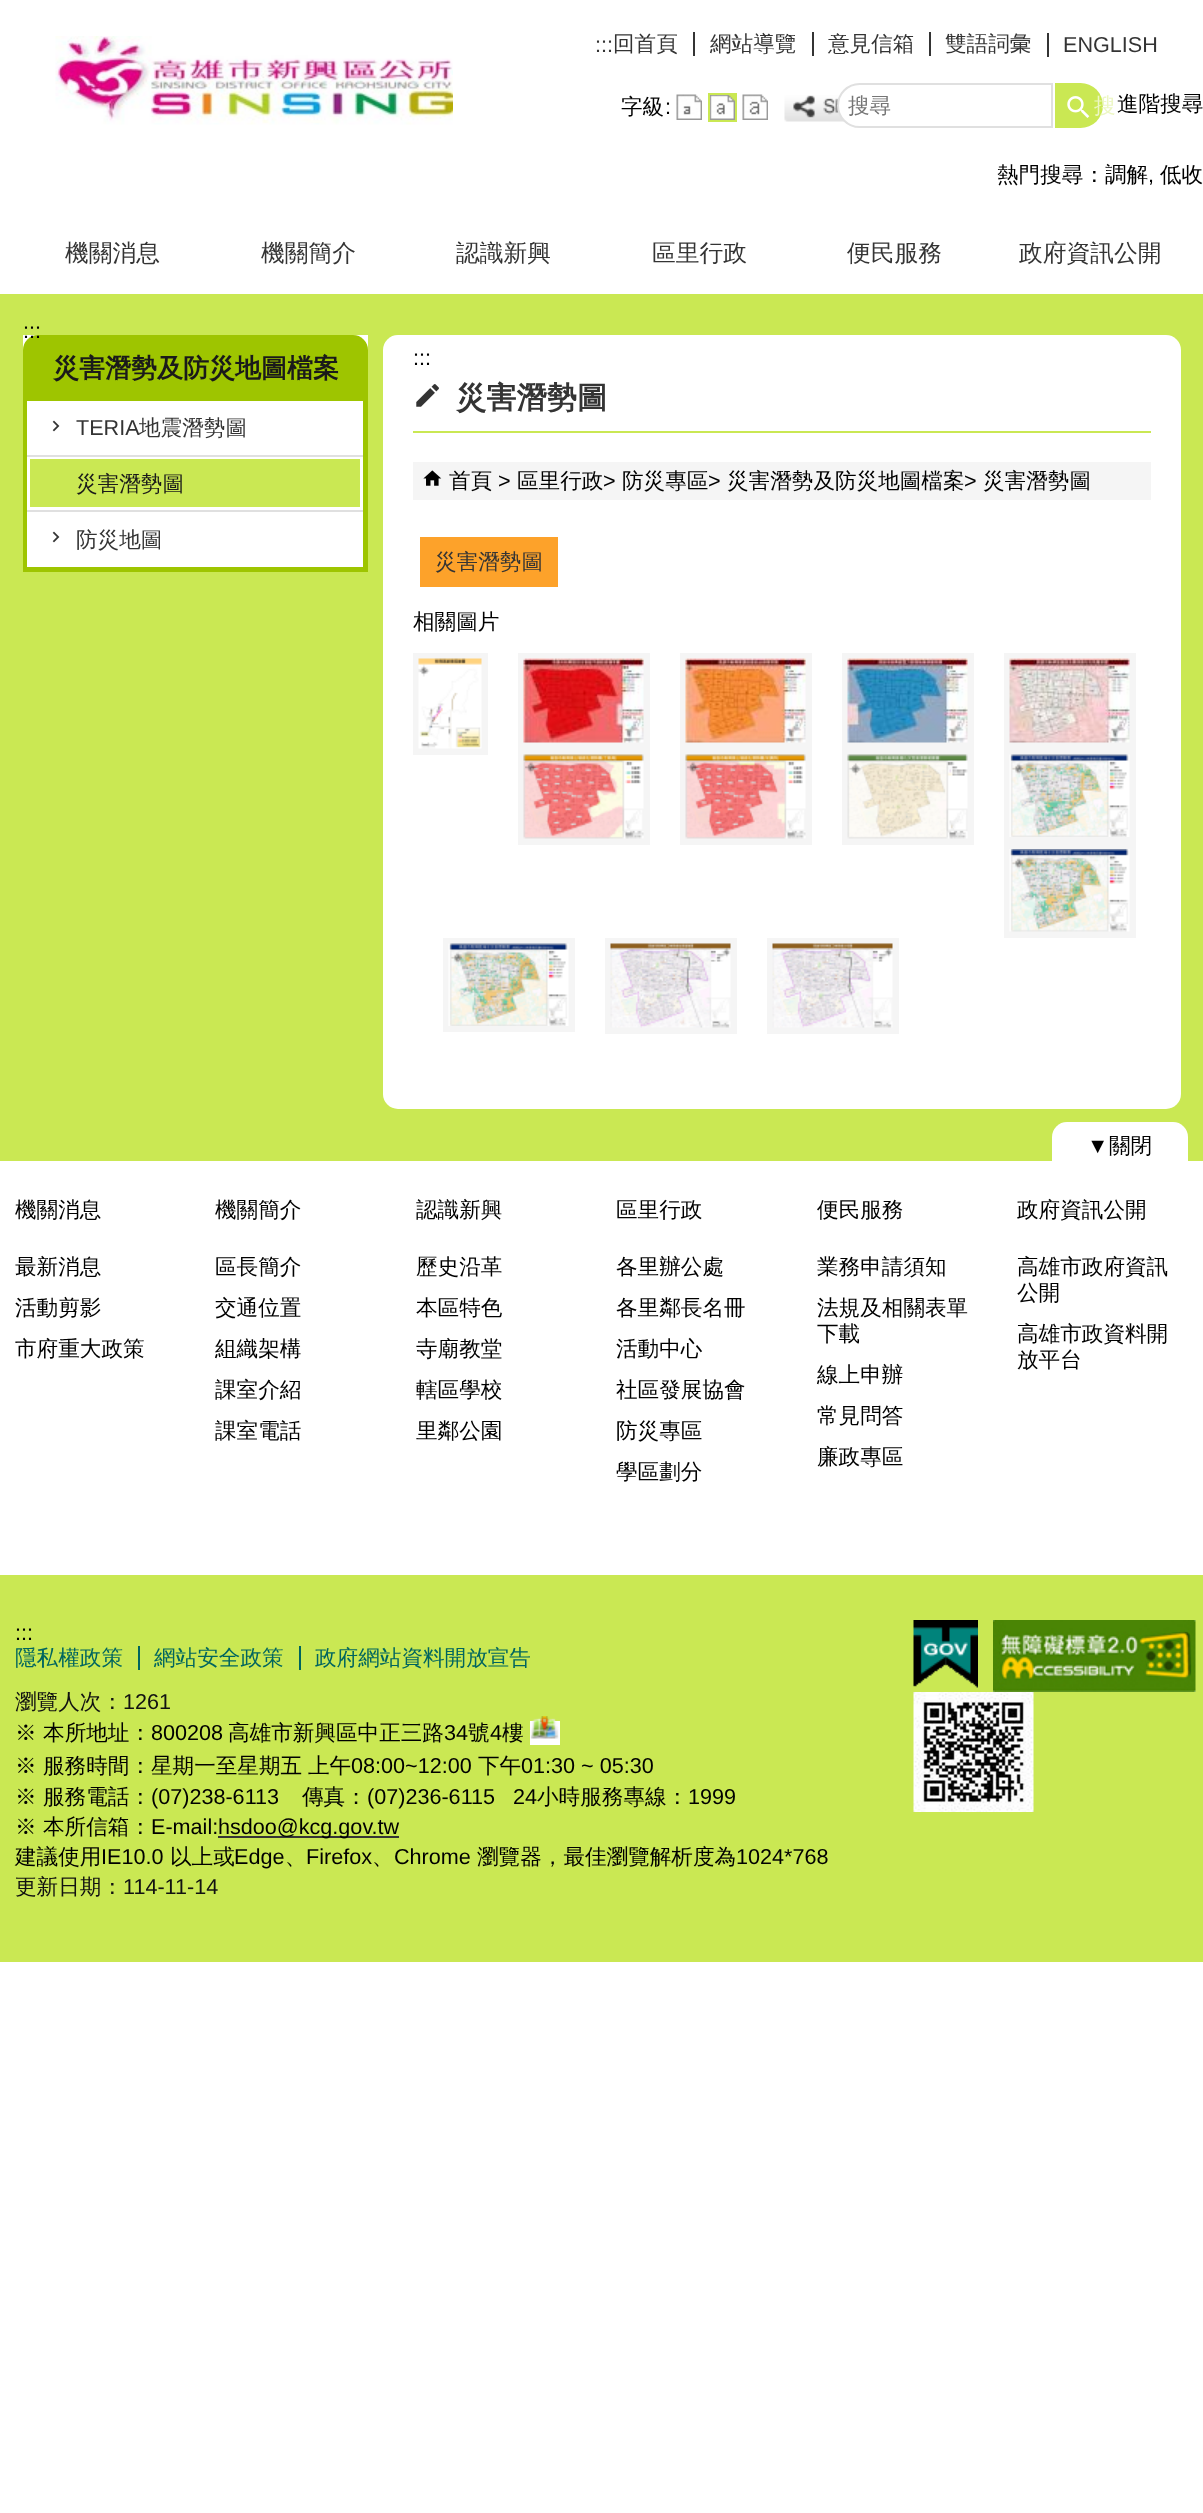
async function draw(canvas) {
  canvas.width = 1203
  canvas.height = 2513
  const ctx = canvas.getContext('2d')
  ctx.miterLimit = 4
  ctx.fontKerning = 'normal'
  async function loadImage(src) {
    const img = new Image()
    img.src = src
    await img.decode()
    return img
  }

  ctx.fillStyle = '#fff'
  ctx.fillRect(0, 0, 1203, 2513)
  ctx.drawImage(await loadImage('image0.png'), 55, 36, 398, 89)
  ctx.font = '21.6px Liberation Sans'
  ctx.fillStyle = '#343434'
  ctx.fillText(':::', 595, 52)
  ctx.font = '500 21.6px WenQuanYi Zen Hei'
  ctx.fillText('回首頁', 613, 51)
  ctx.fillText('網站導覽', 710, 51)
  ctx.fillRect(693, 32, 2, 24)
  ctx.fillText('意見信箱', 828, 51)
  ctx.fillRect(812, 32, 2, 24)
  ctx.fillText('雙語詞彙', 945, 51)
  ctx.fillRect(929, 32, 2, 24)
  ctx.font = '21.6px Liberation Sans'
  ctx.fillText('ENGLISH', 1063, 52)
  ctx.fillRect(1047, 33, 2, 24)
  ctx.font = '500 21.6px WenQuanYi Zen Hei'
  ctx.fillStyle = '#000'
  ctx.fillText('進階搜尋', 1117, 111)
  ctx.fillText('字級', 621, 114)
  ctx.font = '21.6px Liberation Sans'
  ctx.fillText(':', 665, 114)
  ctx.drawImage(await loadImage('image1.png'), 676, 94, 26, 26)
  ctx.fillStyle = '#cae853'
  ctx.fillRect(728, 95, 7, 6)
  ctx.drawImage(await loadImage('image2.png'), 710, 95, 25, 25)
  ctx.strokeStyle = '#cae853'
  ctx.lineWidth = 2
  ctx.strokeRect(709, 94, 27, 27)
  ctx.drawImage(await loadImage('image3.png'), 742, 94, 26, 26)
  ctx.drawImage(await loadImage('image4.png'), 784, 95, 61, 27)
  ctx.fillStyle = '#fff'
  ctx.beginPath()
  ctx.roundRect(838, 84, 214, 43, [21.5, 0, 0, 21.5])
  ctx.fill()
  ctx.strokeStyle = '#e0e0e0'
  ctx.stroke()
  ctx.font = '500 21.6px WenQuanYi Zen Hei'
  ctx.fillStyle = '#757575'
  ctx.fillText('搜尋', 848, 113)
  ctx.fillStyle = '#cae853'
  ctx.beginPath()
  ctx.roundRect(1055, 83, 48, 45, [0, 22.5, 22.5, 0])
  ctx.fill()
  ctx.drawImage(await loadImage('image5.png'), 1067, 96, 23, 22)
  ctx.fillStyle = '#ecf7c3'
  ctx.fillText('搜', 1094, 113)
  ctx.fillStyle = '#000'
  ctx.fillText('熱門搜尋：調解', 997, 182)
  ctx.font = '21.6px Liberation Sans'
  ctx.fillText(',', 1148, 182)
  ctx.font = '500 21.6px WenQuanYi Zen Hei'
  ctx.fillText('低收', 1160, 182)
  ctx.font = '500 23.75px WenQuanYi Zen Hei'
  ctx.fillStyle = '#343434'
  ctx.fillText('機關消息', 65, 261)
  ctx.fillText('機關簡介', 261, 261)
  ctx.fillText('認識新興', 456, 261)
  ctx.fillText('區里行政', 652, 261)
  ctx.fillText('便民服務', 847, 261)
  ctx.fillText('政府資訊公開', 1019, 261)
  ctx.fillStyle = '#cae853'
  ctx.fillRect(0, 294, 1203, 867)
  ctx.fillStyle = '#fff'
  ctx.fillRect(23, 335, 345, 15)
  ctx.fillStyle = '#9ec500'
  ctx.beginPath()
  ctx.roundRect(23, 335, 345, 66, [15, 15, 0, 0])
  ctx.fill()
  ctx.font = '21.6px Liberation Sans'
  ctx.fillStyle = '#000'
  ctx.fillText(':::', 23, 338)
  ctx.font = 'bold 26px WenQuanYi Zen Hei'
  ctx.fillStyle = '#1a1a1a'
  ctx.fillText('災害潛勢及防災地圖檔案', 53, 377)
  ctx.fillStyle = '#9ec500'
  ctx.fillRect(23, 401, 345, 171)
  ctx.fillStyle = '#fff'
  ctx.fillRect(27, 401, 336, 54)
  ctx.drawImage(await loadImage('image6.png'), 52, 420, 8, 12)
  ctx.font = '21.6px Liberation Sans'
  ctx.fillStyle = '#343434'
  ctx.fillText('TERIA', 76, 435)
  ctx.font = '500 21.6px WenQuanYi Zen Hei'
  ctx.fillText('地震潛勢圖', 139, 435)
  ctx.fillStyle = '#fff'
  ctx.fillRect(27, 457, 336, 53)
  ctx.fillStyle = '#e0e0e0'
  ctx.fillRect(27, 455, 336, 2)
  ctx.fillStyle = '#cae853'
  ctx.fillRect(30, 459, 330, 48)
  ctx.fillStyle = '#1a1a1a'
  ctx.fillText('災害潛勢圖', 76, 491)
  ctx.fillStyle = '#fff'
  ctx.fillRect(27, 512, 336, 55)
  ctx.fillStyle = '#e0e0e0'
  ctx.fillRect(27, 510, 336, 2)
  ctx.drawImage(await loadImage('image6.png'), 52, 531, 8, 12)
  ctx.fillStyle = '#343434'
  ctx.fillText('防災地圖', 76, 547)
  ctx.fillStyle = '#fff'
  ctx.beginPath()
  ctx.roundRect(383, 335, 798, 774, 15)
  ctx.fill()
  ctx.font = '21.6px Liberation Sans'
  ctx.fillStyle = '#000'
  ctx.fillText(':::', 413, 365)
  ctx.fillStyle = '#cae853'
  ctx.fillRect(413, 431, 738, 2)
  ctx.drawImage(await loadImage('image7.png'), 416, 384, 23, 23)
  ctx.font = 'bold 30.25px WenQuanYi Zen Hei'
  ctx.fillStyle = '#343434'
  ctx.fillText('災害潛勢圖', 456, 408)
  ctx.fillStyle = '#f5f5f5'
  ctx.fillRect(413, 462, 738, 38)
  ctx.drawImage(await loadImage('image8.png'), 423, 470, 19, 16)
  ctx.font = '500 21.6px WenQuanYi Zen Hei'
  ctx.fillStyle = '#000'
  ctx.fillText('首頁', 449, 488)
  ctx.font = '21.6px Liberation Sans'
  ctx.fillText('>', 498, 488)
  ctx.font = '500 21.6px WenQuanYi Zen Hei'
  ctx.fillText('區里行政', 517, 488)
  ctx.font = '21.6px Liberation Sans'
  ctx.fillText('>', 603, 488)
  ctx.font = '500 21.6px WenQuanYi Zen Hei'
  ctx.fillText('防災專區', 622, 488)
  ctx.font = '21.6px Liberation Sans'
  ctx.fillText('>', 708, 488)
  ctx.font = '500 21.6px WenQuanYi Zen Hei'
  ctx.fillText('災害潛勢及防災地圖檔案', 727, 488)
  ctx.font = '21.6px Liberation Sans'
  ctx.fillText('>', 964, 488)
  ctx.font = '500 21.6px WenQuanYi Zen Hei'
  ctx.fillText('災害潛勢圖', 983, 488)
  ctx.fillStyle = '#fda22a'
  ctx.fillRect(420, 537, 138, 50)
  ctx.fillStyle = '#343434'
  ctx.fillText('災害潛勢圖', 435, 569)
  ctx.fillStyle = '#000'
  ctx.fillText('相關圖片', 413, 629)
  ctx.fillStyle = '#f5f5f5'
  ctx.fillRect(413, 653, 75, 102)
  ctx.drawImage(await loadImage('image9.png'), 418, 658, 64, 91)
  ctx.fillRect(518, 653, 132, 192)
  ctx.drawImage(await loadImage('image10.png'), 523, 658, 121, 85)
  ctx.fillRect(680, 653, 132, 192)
  ctx.drawImage(await loadImage('image11.png'), 685, 658, 121, 85)
  ctx.fillRect(842, 653, 132, 192)
  ctx.drawImage(await loadImage('image12.png'), 847, 658, 121, 85)
  ctx.fillRect(1004, 653, 132, 285)
  ctx.drawImage(await loadImage('image13.png'), 1009, 658, 121, 85)
  ctx.drawImage(await loadImage('image14.png'), 523, 754, 121, 85)
  ctx.drawImage(await loadImage('image15.png'), 685, 754, 121, 85)
  ctx.drawImage(await loadImage('image16.png'), 847, 754, 121, 85)
  ctx.drawImage(await loadImage('image17.png'), 1009, 754, 121, 83)
  ctx.drawImage(await loadImage('image18.png'), 1009, 849, 121, 83)
  ctx.fillRect(443, 938, 132, 94)
  ctx.drawImage(await loadImage('image19.png'), 448, 943, 121, 83)
  ctx.fillRect(605, 938, 132, 96)
  ctx.drawImage(await loadImage('image20.png'), 610, 943, 121, 85)
  ctx.fillRect(767, 938, 132, 96)
  ctx.drawImage(await loadImage('image21.png'), 772, 943, 121, 85)
  ctx.fillStyle = '#fff'
  ctx.beginPath()
  ctx.roundRect(1052, 1122, 136, 45, [15, 15, 0, 0])
  ctx.fill()
  ctx.font = '21.6px Liberation Sans'
  ctx.fillStyle = '#000'
  ctx.fillText('▼', 1087, 1153)
  ctx.font = '500 21.6px WenQuanYi Zen Hei'
  ctx.fillText('關閉', 1109, 1153)
  ctx.fillText('機關消息', 15, 1217)
  ctx.fillText('最新消息', 15, 1274)
  ctx.fillText('活動剪影', 15, 1315)
  ctx.fillText('市府重大政策', 15, 1356)
  ctx.fillText('機關簡介', 215, 1217)
  ctx.fillText('區長簡介', 215, 1274)
  ctx.fillText('交通位置', 215, 1315)
  ctx.fillText('組織架構', 215, 1356)
  ctx.fillText('課室介紹', 215, 1397)
  ctx.fillText('課室電話', 215, 1438)
  ctx.fillText('認識新興', 416, 1217)
  ctx.fillText('歷史沿革', 416, 1274)
  ctx.fillText('本區特色', 416, 1315)
  ctx.fillText('寺廟教堂', 416, 1356)
  ctx.fillText('轄區學校', 416, 1397)
  ctx.fillText('里鄰公園', 416, 1438)
  ctx.fillText('區里行政', 616, 1217)
  ctx.fillText('各里辦公處', 616, 1274)
  ctx.fillText('各里鄰長名冊', 616, 1315)
  ctx.fillText('活動中心', 616, 1356)
  ctx.fillText('社區發展協會', 616, 1397)
  ctx.fillText('防災專區', 616, 1438)
  ctx.fillText('學區劃分', 616, 1479)
  ctx.fillText('便民服務', 817, 1217)
  ctx.fillText('業務申請須知', 817, 1274)
  ctx.fillText('法規及相關表單', 817, 1315)
  ctx.fillText('下載', 817, 1341)
  ctx.fillText('線上申辦', 817, 1382)
  ctx.fillText('常見問答', 817, 1423)
  ctx.fillText('廉政專區', 817, 1464)
  ctx.fillText('政府資訊公開', 1017, 1217)
  ctx.fillText('高雄市政府資訊', 1017, 1274)
  ctx.fillText('公開', 1017, 1300)
  ctx.fillText('高雄市政資料開', 1017, 1341)
  ctx.fillText('放平台', 1017, 1367)
  ctx.fillStyle = '#cae853'
  ctx.fillRect(0, 1575, 1203, 387)
  ctx.font = '21.6px Liberation Sans'
  ctx.fillStyle = '#000'
  ctx.fillText(':::', 15, 1640)
  ctx.drawImage(await loadImage('image22.png'), 913, 1620, 65, 68)
  ctx.drawImage(await loadImage('image23.png'), 993, 1620, 203, 72)
  ctx.drawImage(await loadImage('image24.png'), 913, 1692, 121, 120)
  ctx.font = '500 21.6px WenQuanYi Zen Hei'
  ctx.fillStyle = '#00655f'
  ctx.fillText('隱私權政策', 15, 1665)
  ctx.fillText('網站安全政策', 154, 1665)
  ctx.fillRect(138, 1646, 2, 24)
  ctx.fillText('政府網站資料開放宣告', 315, 1665)
  ctx.fillRect(299, 1646, 2, 24)
  ctx.fillStyle = '#111'
  ctx.fillText('瀏覽人次：', 15, 1709)
  ctx.font = '21.6px Liberation Sans'
  ctx.fillText('1261', 123, 1709)
  ctx.font = '500 21.6px WenQuanYi Zen Hei'
  ctx.fillStyle = '#000'
  ctx.fillText('高雄市新興區中正三路', 228, 1740)
  ctx.fillStyle = '#fff'
  ctx.fillRect(530, 1721, 30, 24)
  ctx.drawImage(await loadImage('image25.png'), 530, 1716, 29, 23)
  ctx.fillStyle = '#000'
  ctx.fillText('※ 本所地址：', 15, 1740)
  ctx.font = '21.6px Liberation Sans'
  ctx.fillText('800208', 151, 1740)
  ctx.fillText('34', 444, 1740)
  ctx.font = '500 21.6px WenQuanYi Zen Hei'
  ctx.fillText('號', 468, 1740)
  ctx.font = '21.6px Liberation Sans'
  ctx.fillText('4', 490, 1740)
  ctx.font = '500 21.6px WenQuanYi Zen Hei'
  ctx.fillText('樓', 502, 1740)
  ctx.fillText('※', 15, 1773)
  ctx.fillText('服務時間：星期一至星期五', 43, 1773)
  ctx.fillText('上午', 308, 1773)
  ctx.font = '21.6px Liberation Sans'
  ctx.fillText('08:00~12:00', 351, 1773)
  ctx.font = '500 21.6px WenQuanYi Zen Hei'
  ctx.fillText('下午', 478, 1773)
  ctx.font = '21.6px Liberation Sans'
  ctx.fillText('01:30 ~ 05:30', 521, 1773)
  ctx.font = '500 21.6px WenQuanYi Zen Hei'
  ctx.fillText('※', 15, 1804)
  ctx.fillText('服務電話：', 43, 1804)
  ctx.font = '21.6px Liberation Sans'
  ctx.fillText('(07)238-6113', 151, 1804)
  ctx.font = '500 21.6px WenQuanYi Zen Hei'
  ctx.fillText('傳真：', 302, 1804)
  ctx.font = '21.6px Liberation Sans'
  ctx.fillText('(07)236-6115   24', 367, 1804)
  ctx.font = '500 21.6px WenQuanYi Zen Hei'
  ctx.fillText('小時服務專線：', 537, 1804)
  ctx.font = '21.6px Liberation Sans'
  ctx.fillText('1999', 688, 1804)
  ctx.font = '500 21.6px WenQuanYi Zen Hei'
  ctx.fillText('※', 15, 1834)
  ctx.fillText('本所信箱：', 43, 1834)
  ctx.font = '21.6px Liberation Sans'
  ctx.fillText('E-mail:', 151, 1834)
  ctx.fillStyle = '#343434'
  ctx.fillRect(218, 1836, 181, 2)
  ctx.fillStyle = '#000'
  ctx.fillText('hsdoo@kcg.gov.tw', 218, 1834)
  ctx.font = '500 21.6px WenQuanYi Zen Hei'
  ctx.fillText('建議使用', 15, 1864)
  ctx.font = '21.6px Liberation Sans'
  ctx.fillText('IE10.0', 101, 1864)
  ctx.font = '500 21.6px WenQuanYi Zen Hei'
  ctx.fillText('以上或', 170, 1864)
  ctx.font = '21.6px Liberation Sans'
  ctx.fillText('Edge', 234, 1864)
  ctx.font = '500 21.6px WenQuanYi Zen Hei'
  ctx.fillText('、', 285, 1864)
  ctx.font = '21.6px Liberation Sans'
  ctx.fillText('Firefox', 306, 1864)
  ctx.font = '500 21.6px WenQuanYi Zen Hei'
  ctx.fillText('、', 372, 1864)
  ctx.font = '21.6px Liberation Sans'
  ctx.fillText('Chrome', 394, 1864)
  ctx.font = '500 21.6px WenQuanYi Zen Hei'
  ctx.fillText('瀏覽器，最佳瀏覽解析度為', 477, 1864)
  ctx.font = '21.6px Liberation Sans'
  ctx.fillText('1024*768', 736, 1864)
  ctx.font = '500 21.6px WenQuanYi Zen Hei'
  ctx.fillStyle = '#111'
  ctx.fillText('更新日期：', 15, 1894)
  ctx.font = '21.6px Liberation Sans'
  ctx.fillText('114-11-14', 123, 1894)
}

draw(document.querySelector('canvas'))
